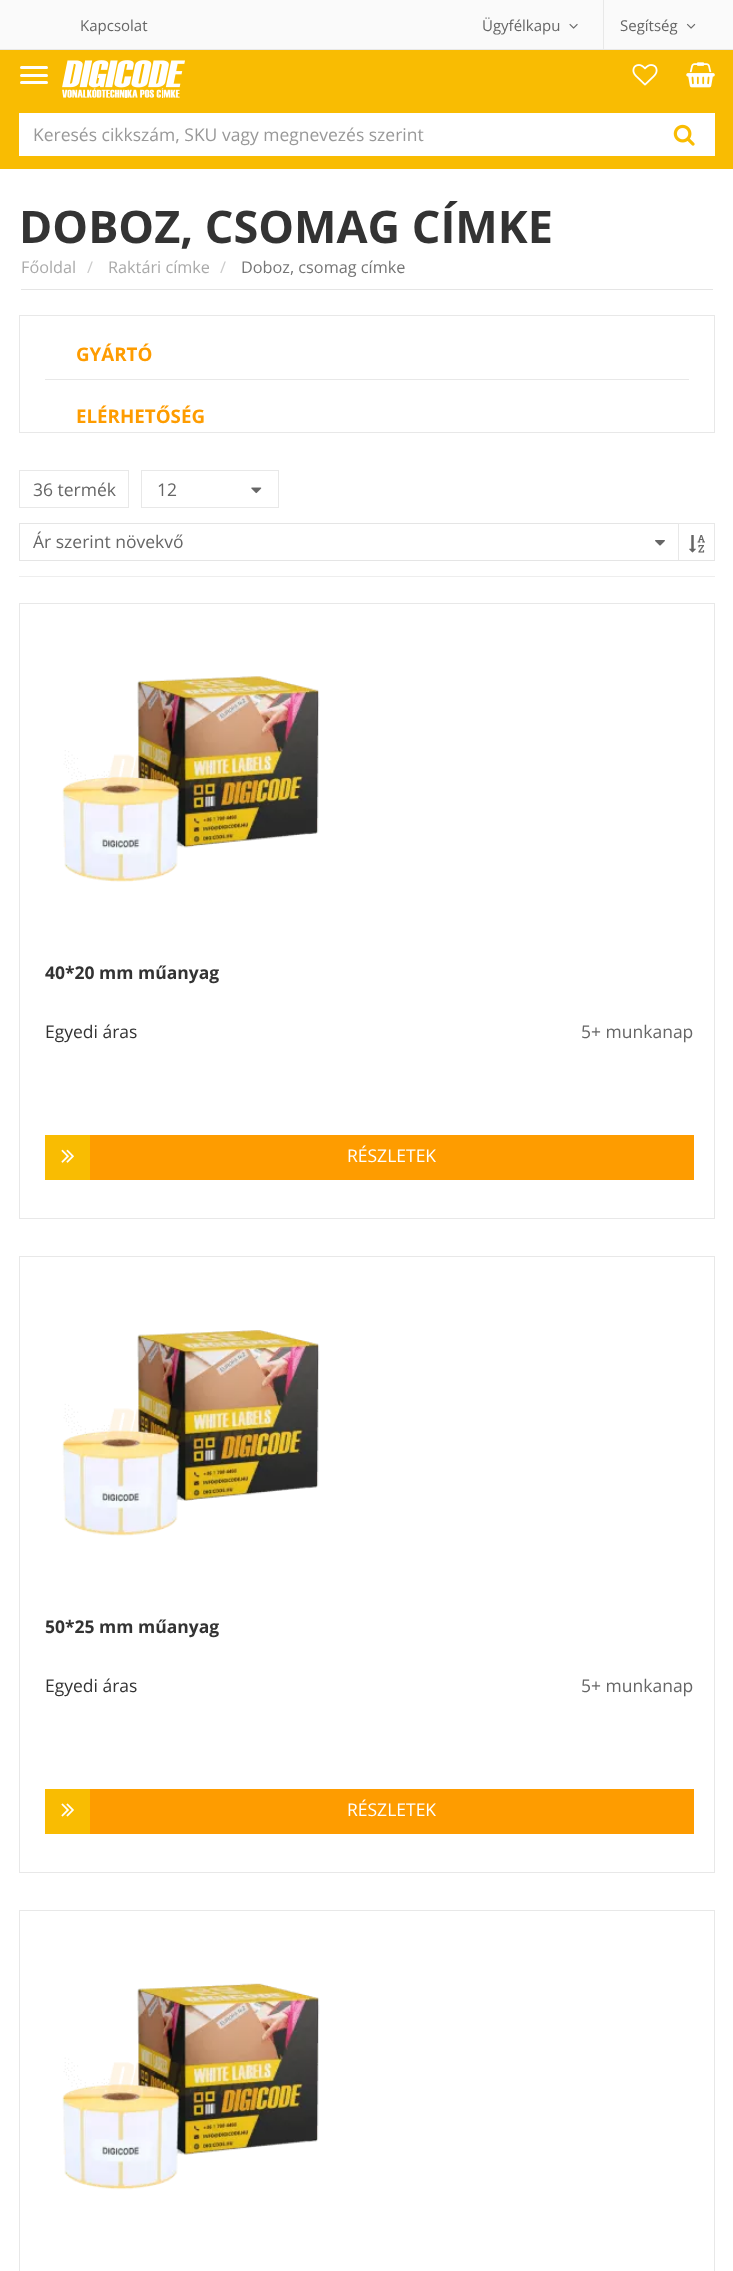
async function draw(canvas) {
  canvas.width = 733
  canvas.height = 2271
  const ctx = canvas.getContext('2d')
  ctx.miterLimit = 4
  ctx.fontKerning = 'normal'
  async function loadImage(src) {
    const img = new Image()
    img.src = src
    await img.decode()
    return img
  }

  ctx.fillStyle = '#fff'
  ctx.fillRect(0, 0, 733, 2271)
  ctx.fillStyle = '#fafafa'
  ctx.fillRect(0, 0, 733, 49)
  ctx.fillStyle = '#e8e8e8'
  ctx.fillRect(0, 49, 733, 1)
  ctx.font = '15px Open Sans'
  ctx.fillStyle = '#666'
  ctx.fillText('Kapcsolat', 80, 31)
  ctx.fillText('Ügyfélkapu', 482, 31)
  ctx.drawImage(await loadImage('image0.png'), 569, 23, 9, 6)
  ctx.fillStyle = '#e8e8e8'
  ctx.fillRect(603, 0, 1, 49)
  ctx.fillStyle = '#666'
  ctx.fillText('Segítség', 620, 31)
  ctx.drawImage(await loadImage('image1.png'), 686, 23, 10, 6)
  ctx.fillStyle = '#f9bc02'
  ctx.fillRect(0, 50, 733, 119)
  ctx.fillStyle = '#fff'
  ctx.beginPath()
  ctx.roundRect(20, 66, 28, 3, 1.5)
  ctx.fill()
  ctx.beginPath()
  ctx.roundRect(20, 74, 28, 3, 1.5)
  ctx.fill()
  ctx.beginPath()
  ctx.roundRect(20, 81, 28, 3, 1.5)
  ctx.fill()
  ctx.drawImage(await loadImage('image2.png'), 62, 60, 123, 38)
  ctx.drawImage(await loadImage('image3.png'), 632, 64, 26, 22)
  ctx.drawImage(await loadImage('image4.png'), 686, 62, 29, 26)
  ctx.fillRect(19, 113, 696, 43)
  ctx.font = '17.5px Open Sans'
  ctx.fillStyle = '#999'
  ctx.fillText('Keresés cikkszám, SKU vagy megnevezés szerint', 33, 141)
  ctx.drawImage(await loadImage('image5.png'), 673, 124, 22, 22)
  ctx.font = 'bold 45px Open Sans'
  ctx.fillStyle = '#333'
  ctx.fillText('DOBOZ, CSOMAG CÍMKE', 19, 243)
  ctx.fillStyle = '#e5e5e5'
  ctx.fillRect(21, 289, 692, 1)
  ctx.font = '16.25px Open Sans'
  ctx.fillStyle = '#aaa'
  ctx.fillText('Főoldal', 21, 273)
  ctx.fillStyle = '#ccc'
  ctx.fillText('/', 87, 273)
  ctx.fillStyle = '#aaa'
  ctx.fillText('Raktári címke', 108, 273)
  ctx.fillStyle = '#ccc'
  ctx.fillText('/', 220, 273)
  ctx.fillStyle = '#757575'
  ctx.fillText('Doboz, csomag címke', 241, 273)
  ctx.strokeStyle = '#e8e8e8'
  ctx.strokeRect(19.5, 315.5, 695, 117)
  ctx.fillStyle = '#e8e8e8'
  ctx.fillRect(45, 379, 644, 1)
  ctx.font = 'bold 18.75px Open Sans'
  ctx.fillStyle = '#fe9c00'
  ctx.fillText('GYÁRTÓ', 76, 361)
  ctx.fillText('ELÉRHETŐSÉG', 76, 423)
  ctx.strokeRect(19.5, 470.5, 109, 37)
  ctx.font = '17.5px Open Sans'
  ctx.fillStyle = '#666'
  ctx.fillText('36 termék', 33, 496)
  ctx.strokeRect(141.5, 470.5, 137, 37)
  ctx.fillText('12', 157, 496)
  ctx.drawImage(await loadImage('image6.png'), 251, 487, 11, 7)
  ctx.drawImage(await loadImage('image7.png'), 655, 540, 10, 6)
  ctx.strokeStyle = '#e5e5e5'
  ctx.strokeRect(19.5, 523.5, 695, 37)
  ctx.fillText('Ár szerint növekvő', 33, 548)
  ctx.fillStyle = '#e8e8e8'
  ctx.fillRect(678, 523, 37, 1)
  ctx.fillRect(714, 523, 1, 37)
  ctx.fillRect(678, 523, 1, 37)
  ctx.drawImage(await loadImage('image8.png'), 689, 535, 16, 18)
  ctx.fillStyle = '#eee'
  ctx.fillRect(19, 576, 696, 1)
  ctx.strokeStyle = '#e8e8e8'
  ctx.strokeRect(19.5, 603.5, 695, 615)
  ctx.drawImage(await loadImage('image9.png'), 62, 676, 258, 206)
  ctx.font = 'bold 17.5px Open Sans'
  ctx.fillStyle = '#333'
  ctx.fillText('40*20 mm műanyag', 45, 979)
  ctx.font = '17.5px Open Sans'
  ctx.fillText('Egyedi áras', 45, 1038)
  ctx.fillStyle = '#666'
  ctx.fillText('5+ munkanap', 581, 1038)
  ctx.fillStyle = '#fe9c00'
  ctx.fillRect(90, 1135, 604, 45)
  ctx.fillStyle = '#f9bc02'
  ctx.fillRect(45, 1135, 45, 45)
  ctx.drawImage(await loadImage('image10.png'), 61, 1149, 13, 14)
  ctx.fillStyle = '#fff'
  ctx.fillText('RÉSZLETEK', 347, 1162)
  ctx.strokeRect(19.5, 1256.5, 695, 616)
  ctx.drawImage(await loadImage('image11.png'), 62, 1330, 258, 206)
  ctx.font = 'bold 17.5px Open Sans'
  ctx.fillStyle = '#333'
  ctx.fillText('50*25 mm műanyag', 45, 1633)
  ctx.font = '17.5px Open Sans'
  ctx.fillText('Egyedi áras', 45, 1692)
  ctx.fillStyle = '#666'
  ctx.fillText('5+ munkanap', 581, 1692)
  ctx.fillStyle = '#fe9c00'
  ctx.fillRect(90, 1789, 604, 45)
  ctx.fillStyle = '#f9bc02'
  ctx.fillRect(45, 1789, 45, 45)
  ctx.drawImage(await loadImage('image12.png'), 61, 1803, 13, 14)
  ctx.fillStyle = '#fff'
  ctx.fillText('RÉSZLETEK', 347, 1816)
  ctx.strokeRect(19.5, 1910.5, 695, 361)
  ctx.drawImage(await loadImage('image13.png'), 62, 1983, 258, 207)
}

draw(document.querySelector('canvas'))
